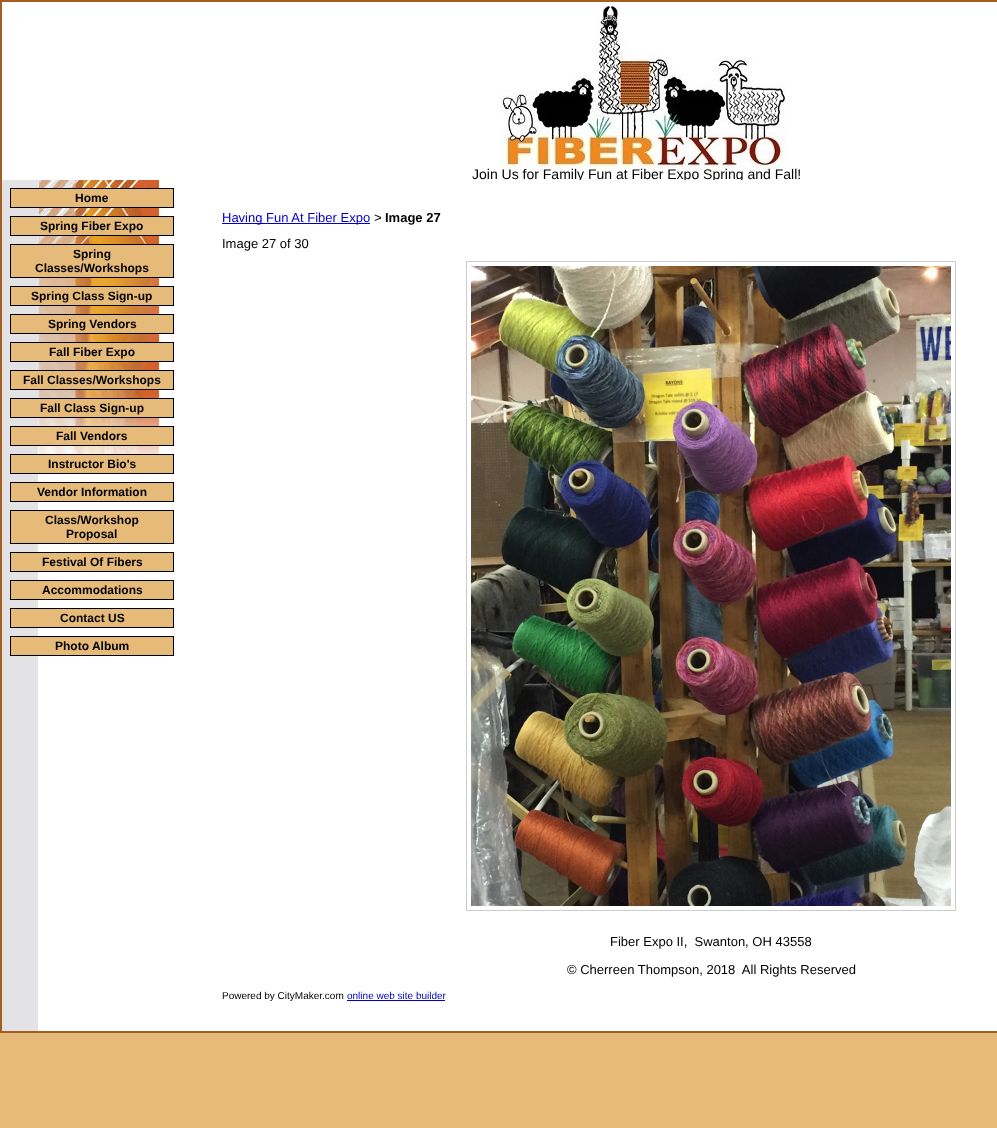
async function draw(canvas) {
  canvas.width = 997
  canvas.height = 1128
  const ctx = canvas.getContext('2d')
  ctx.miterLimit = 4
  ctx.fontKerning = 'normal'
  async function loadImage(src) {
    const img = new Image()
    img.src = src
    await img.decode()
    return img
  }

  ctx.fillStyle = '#e6ba78'
  ctx.fillRect(0, 0, 997, 1128)
  ctx.fillStyle = '#a45e20'
  ctx.fillRect(0, 0, 997, 1033)
  ctx.drawImage(await loadImage('image0.png'), 2, 2, 995, 178)
  ctx.save()
  ctx.beginPath()
  ctx.rect(2, 2, 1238, 178)
  ctx.clip()
  ctx.font = '14px Liberation Sans'
  ctx.fillStyle = '#000'
  ctx.fillText('Join Us for Family Fun at Fiber Expo Spring and Fall!', 472, 179)
  ctx.restore()
  ctx.fillStyle = '#e3e3e5'
  ctx.fillRect(2, 180, 32, 851)
  ctx.drawImage(await loadImage('image1.png'), 34, 180, 148, 851)
  ctx.fillStyle = '#000'
  ctx.fillRect(10, 188, 164, 20)
  ctx.fillStyle = '#e6ba78'
  ctx.fillRect(11, 189, 162, 18)
  ctx.font = 'bold 12px Liberation Sans'
  ctx.fillStyle = '#000'
  ctx.fillText('Home', 75, 202)
  ctx.fillRect(10, 216, 164, 20)
  ctx.fillStyle = '#e6ba78'
  ctx.fillRect(11, 217, 162, 18)
  ctx.fillStyle = '#000'
  ctx.fillText('Spring Fiber Expo', 40, 230)
  ctx.fillRect(10, 244, 164, 34)
  ctx.fillStyle = '#e6ba78'
  ctx.fillRect(11, 245, 162, 32)
  ctx.fillStyle = '#000'
  ctx.fillText('Spring', 73, 258)
  ctx.fillText('Classes/Workshops', 35, 272)
  ctx.fillRect(10, 286, 164, 20)
  ctx.fillStyle = '#e6ba78'
  ctx.fillRect(11, 287, 162, 18)
  ctx.fillStyle = '#000'
  ctx.fillText('Spring Class Sign-up', 31, 300)
  ctx.fillRect(10, 314, 164, 20)
  ctx.fillStyle = '#e6ba78'
  ctx.fillRect(11, 315, 162, 18)
  ctx.fillStyle = '#000'
  ctx.fillText('Spring Vendors', 48, 328)
  ctx.fillRect(10, 342, 164, 20)
  ctx.fillStyle = '#e6ba78'
  ctx.fillRect(11, 343, 162, 18)
  ctx.fillStyle = '#000'
  ctx.fillText('Fall Fiber Expo', 49, 356)
  ctx.fillRect(10, 370, 164, 20)
  ctx.fillStyle = '#e6ba78'
  ctx.fillRect(11, 371, 162, 18)
  ctx.fillStyle = '#000'
  ctx.fillText('Fall Classes/Workshops', 23, 384)
  ctx.fillRect(10, 398, 164, 20)
  ctx.fillStyle = '#e6ba78'
  ctx.fillRect(11, 399, 162, 18)
  ctx.fillStyle = '#000'
  ctx.fillText('Fall Class Sign-up', 40, 412)
  ctx.fillRect(10, 426, 164, 20)
  ctx.fillStyle = '#e6ba78'
  ctx.fillRect(11, 427, 162, 18)
  ctx.fillStyle = '#000'
  ctx.fillText('Fall Vendors', 56, 440)
  ctx.fillRect(10, 454, 164, 20)
  ctx.fillStyle = '#e6ba78'
  ctx.fillRect(11, 455, 162, 18)
  ctx.fillStyle = '#000'
  ctx.fillText('Instructor Bio\'s', 48, 468)
  ctx.fillRect(10, 482, 164, 20)
  ctx.fillStyle = '#e6ba78'
  ctx.fillRect(11, 483, 162, 18)
  ctx.fillStyle = '#000'
  ctx.fillText('Vendor Information', 37, 496)
  ctx.fillRect(10, 510, 164, 34)
  ctx.fillStyle = '#e6ba78'
  ctx.fillRect(11, 511, 162, 32)
  ctx.fillStyle = '#000'
  ctx.fillText('Class/Workshop', 45, 524)
  ctx.fillText('Proposal', 66, 538)
  ctx.fillRect(10, 552, 164, 20)
  ctx.fillStyle = '#e6ba78'
  ctx.fillRect(11, 553, 162, 18)
  ctx.fillStyle = '#000'
  ctx.fillText('Festival Of Fibers', 42, 566)
  ctx.fillRect(10, 580, 164, 20)
  ctx.fillStyle = '#e6ba78'
  ctx.fillRect(11, 581, 162, 18)
  ctx.fillStyle = '#000'
  ctx.fillText('Accommodations', 42, 594)
  ctx.fillRect(10, 608, 164, 20)
  ctx.fillStyle = '#e6ba78'
  ctx.fillRect(11, 609, 162, 18)
  ctx.fillStyle = '#000'
  ctx.fillText('Contact US', 60, 622)
  ctx.fillRect(10, 636, 164, 20)
  ctx.fillStyle = '#e6ba78'
  ctx.fillRect(11, 637, 162, 18)
  ctx.fillStyle = '#000'
  ctx.fillText('Photo Album', 55, 650)
  ctx.fillStyle = '#fff'
  ctx.fillRect(182, 180, 815, 851)
  ctx.fillStyle = '#00c'
  ctx.fillRect(222, 223, 148, 1)
  ctx.font = '13px Liberation Sans'
  ctx.fillText('Having Fun At Fiber Expo', 222, 222)
  ctx.font = '13px Liberation Mono'
  ctx.fillStyle = '#000'
  ctx.fillText('>', 374, 222)
  ctx.font = 'bold 13px Liberation Sans'
  ctx.fillText('Image 27', 385, 222)
  ctx.font = '13px Liberation Sans'
  ctx.fillText('Image 27 of 30', 222, 248)
  ctx.strokeStyle = '#ccc'
  ctx.strokeRect(466.5, 261.5, 489, 649)
  ctx.drawImage(await loadImage('image2.png'), 471, 266, 480, 640)
  ctx.fillText('Fiber Expo II,  Swanton, OH 43558', 610, 946)
  ctx.fillText('© Cherreen Thompson, 2018  All Rights Reserved', 567, 974)
  ctx.font = '10px Liberation Sans'
  ctx.fillText('Powered by CityMaker.com', 222, 999)
  ctx.fillStyle = '#00c'
  ctx.fillText('online web site builder', 347, 999)
  ctx.fillRect(347, 1000, 98, 1)
}

draw(document.querySelector('canvas'))
